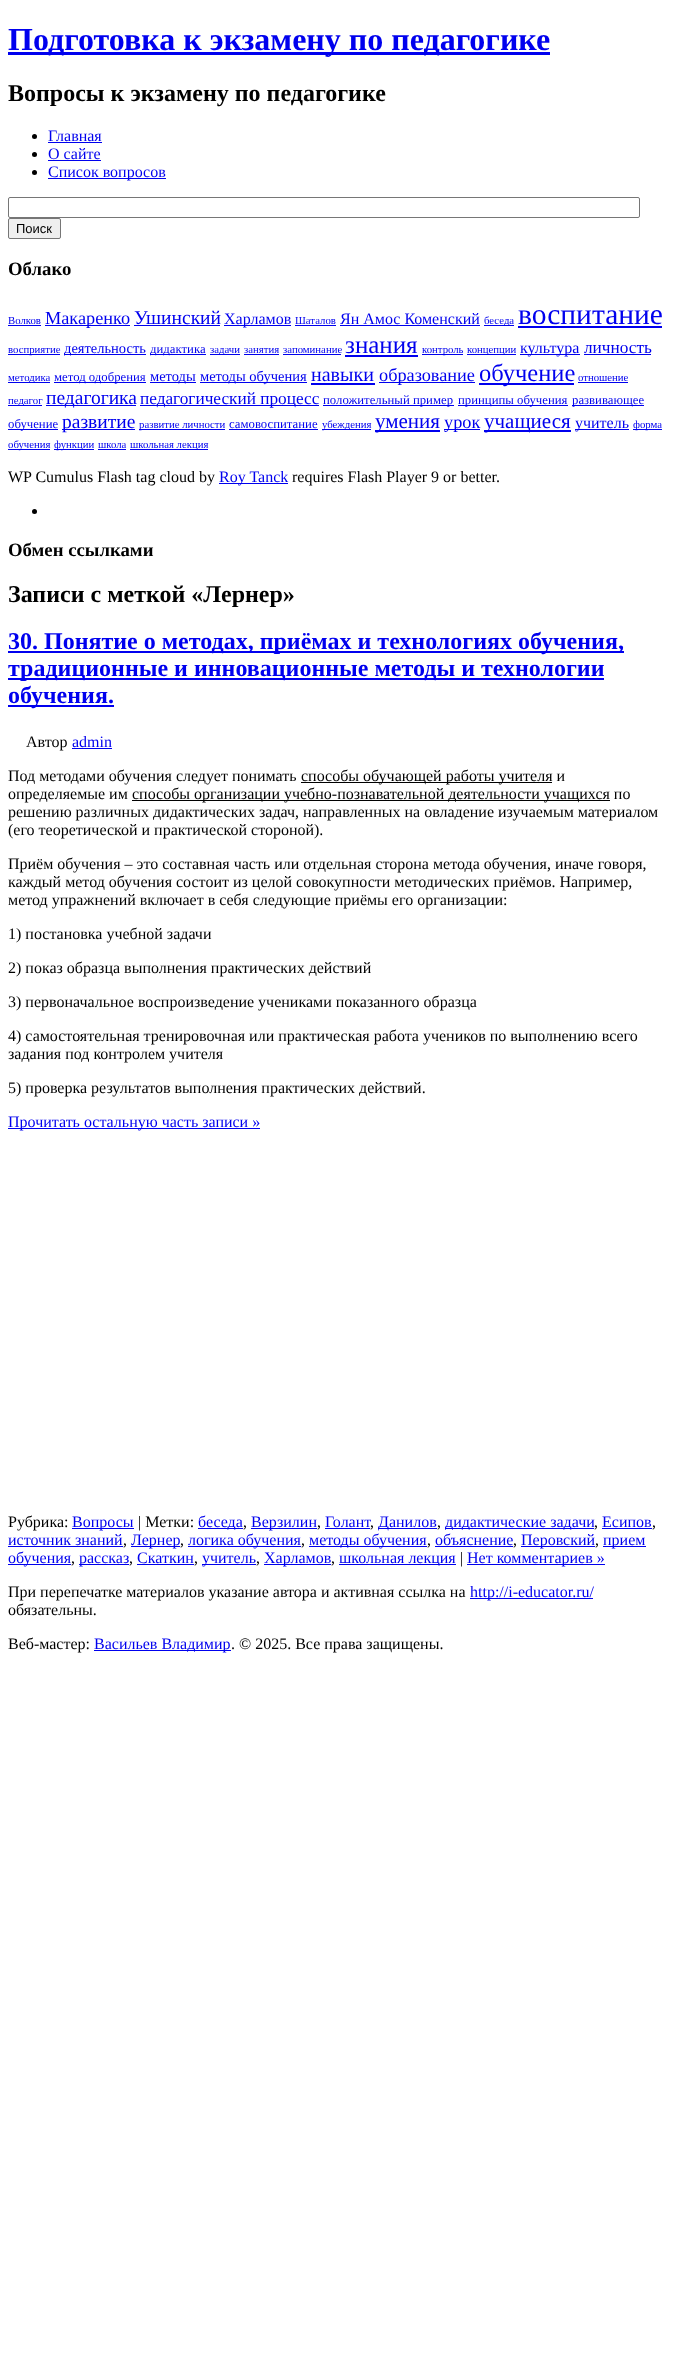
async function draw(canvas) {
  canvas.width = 673
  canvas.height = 2363
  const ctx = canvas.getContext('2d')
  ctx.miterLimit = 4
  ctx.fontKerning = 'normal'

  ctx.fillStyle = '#fff'
  ctx.fillRect(0, 0, 673, 2363)
  ctx.fillStyle = '#00e'
  ctx.fillRect(8, 52, 542, 3)
  ctx.font = 'bold 32px Liberation Serif'
  ctx.fillText('Подготовка к экзамену по педагогике', 8, 50)
  ctx.font = 'bold 24px Liberation Serif'
  ctx.fillStyle = '#000'
  ctx.fillText('Вопросы к экзамену по педагогике', 8, 101)
  ctx.beginPath()
  ctx.arc(34.5, 136.5, 2.5, 0, 2 * Math.PI)
  ctx.fill()
  ctx.font = '16px Liberation Serif'
  ctx.fillStyle = '#00e'
  ctx.fillText('Главная', 48, 141)
  ctx.fillRect(48, 142, 54, 1)
  ctx.fillStyle = '#000'
  ctx.beginPath()
  ctx.arc(34.5, 154.5, 2.5, 0, 2 * Math.PI)
  ctx.fill()
  ctx.fillStyle = '#00e'
  ctx.fillText('О сайте', 48, 159)
  ctx.fillRect(48, 160, 53, 1)
  ctx.fillStyle = '#000'
  ctx.beginPath()
  ctx.arc(34.5, 172.5, 2.5, 0, 2 * Math.PI)
  ctx.fill()
  ctx.fillStyle = '#00e'
  ctx.fillRect(48, 178, 118, 1)
  ctx.fillText('Список вопросов', 48, 177)
  ctx.beginPath()
  ctx.roundRect(8.5, 197.5, 631, 20, 1.5)
  ctx.strokeStyle = '#767676'
  ctx.stroke()
  ctx.fillStyle = '#efefef'
  ctx.beginPath()
  ctx.roundRect(8.5, 218.5, 52, 20, 1.5)
  ctx.fill()
  ctx.stroke()
  ctx.font = '13px Liberation Sans'
  ctx.fillStyle = '#000'
  ctx.fillText('Поиск', 16, 233)
  ctx.font = 'bold 18.75px Liberation Serif'
  ctx.fillText('Облако', 8, 275)
  ctx.font = '10.75px Liberation Serif'
  ctx.fillStyle = '#00e'
  ctx.fillText('Волков', 8, 324)
  ctx.fillRect(8, 325, 33, 1)
  ctx.fillRect(45, 325, 85, 1)
  ctx.font = '18.25px Liberation Serif'
  ctx.fillText('Макаренко', 45, 324)
  ctx.font = '19.5px Liberation Serif'
  ctx.fillText('Ушинский', 134, 324)
  ctx.fillRect(134, 325, 86, 1)
  ctx.fillRect(224, 325, 67, 1)
  ctx.font = '16px Liberation Serif'
  ctx.fillText('Харламов', 224, 324)
  ctx.font = '10.75px Liberation Serif'
  ctx.fillText('Шаталов', 295, 324)
  ctx.fillRect(295, 325, 41, 1)
  ctx.font = '16px Liberation Serif'
  ctx.fillText('Ян Амос Коменский', 340, 324)
  ctx.fillRect(340, 325, 140, 1)
  ctx.fillRect(484, 325, 30, 1)
  ctx.font = '10.75px Liberation Serif'
  ctx.fillText('беседа', 484, 324)
  ctx.font = '29.5px Liberation Serif'
  ctx.fillText('воспитание', 518, 324)
  ctx.fillRect(518, 326, 144, 2)
  ctx.fillRect(8, 354, 52, 1)
  ctx.font = '10.75px Liberation Serif'
  ctx.fillText('восприятие', 8, 353)
  ctx.fillRect(64, 354, 82, 1)
  ctx.font = '14.5px Liberation Serif'
  ctx.fillText('деятельность', 64, 353)
  ctx.fillRect(150, 354, 56, 1)
  ctx.font = '12.75px Liberation Serif'
  ctx.fillText('дидактика', 150, 353)
  ctx.fillRect(210, 354, 30, 1)
  ctx.font = '10.75px Liberation Serif'
  ctx.fillText('задачи', 210, 353)
  ctx.fillText('занятия', 244, 353)
  ctx.fillRect(244, 354, 35, 1)
  ctx.fillText('запоминание', 283, 353)
  ctx.fillRect(283, 354, 58, 1)
  ctx.font = '25px Liberation Serif'
  ctx.fillText('знания', 345, 353)
  ctx.fillRect(345, 355, 73, 2)
  ctx.fillRect(422, 354, 41, 1)
  ctx.font = '10.75px Liberation Serif'
  ctx.fillText('контроль', 422, 353)
  ctx.fillRect(467, 354, 49, 1)
  ctx.fillText('концепции', 467, 353)
  ctx.fillRect(520, 354, 60, 1)
  ctx.font = '16px Liberation Serif'
  ctx.fillText('культура', 520, 353)
  ctx.font = '17.25px Liberation Serif'
  ctx.fillText('личность', 584, 353)
  ctx.fillRect(584, 354, 67, 1)
  ctx.fillRect(8, 382, 42, 1)
  ctx.font = '10.75px Liberation Serif'
  ctx.fillText('методика', 8, 381)
  ctx.fillRect(54, 382, 92, 1)
  ctx.font = '12.75px Liberation Serif'
  ctx.fillText('метод одобрения', 54, 381)
  ctx.fillRect(150, 382, 46, 1)
  ctx.font = '14.5px Liberation Serif'
  ctx.fillText('методы', 150, 381)
  ctx.fillRect(200, 382, 107, 1)
  ctx.fillText('методы обучения', 200, 381)
  ctx.font = '20px Liberation Serif'
  ctx.fillText('навыки', 311, 381)
  ctx.fillRect(311, 383, 64, 2)
  ctx.fillRect(379, 382, 96, 1)
  ctx.font = '18.25px Liberation Serif'
  ctx.fillText('образование', 379, 381)
  ctx.fillRect(479, 383, 95, 2)
  ctx.font = '24.5px Liberation Serif'
  ctx.fillText('обучение', 479, 381)
  ctx.font = '10.75px Liberation Serif'
  ctx.fillText('отношение', 578, 381)
  ctx.fillRect(578, 382, 50, 1)
  ctx.fillRect(8, 405, 34, 1)
  ctx.fillText('педагог', 8, 404)
  ctx.fillRect(46, 405, 90, 1)
  ctx.font = '19.5px Liberation Serif'
  ctx.fillText('педагогика', 46, 404)
  ctx.fillRect(140, 405, 179, 1)
  ctx.font = '17.25px Liberation Serif'
  ctx.fillText('педагогический процесс', 140, 404)
  ctx.fillRect(323, 405, 131, 1)
  ctx.font = '12.75px Liberation Serif'
  ctx.fillText('положительный пример', 323, 404)
  ctx.fillRect(458, 405, 110, 1)
  ctx.fillText('принципы обучения', 458, 404)
  ctx.fillRect(572, 405, 72, 1)
  ctx.fillText('развивающее', 572, 404)
  ctx.fillRect(8, 429, 50, 1)
  ctx.fillText('обучение', 8, 428)
  ctx.fillRect(62, 429, 73, 1)
  ctx.font = '19.5px Liberation Serif'
  ctx.fillText('развитие', 62, 428)
  ctx.fillRect(139, 429, 86, 1)
  ctx.font = '10.75px Liberation Serif'
  ctx.fillText('развитие личности', 139, 428)
  ctx.font = '12.75px Liberation Serif'
  ctx.fillText('самовоспитание', 229, 428)
  ctx.fillRect(229, 429, 89, 1)
  ctx.fillRect(322, 429, 49, 1)
  ctx.font = '10.75px Liberation Serif'
  ctx.fillText('убеждения', 322, 428)
  ctx.fillRect(375, 430, 65, 2)
  ctx.font = '21px Liberation Serif'
  ctx.fillText('умения', 375, 428)
  ctx.fillRect(444, 429, 36, 1)
  ctx.font = '18.25px Liberation Serif'
  ctx.fillText('урок', 444, 428)
  ctx.fillRect(484, 430, 87, 2)
  ctx.font = '21px Liberation Serif'
  ctx.fillText('учащиеся', 484, 428)
  ctx.fillRect(575, 429, 54, 1)
  ctx.font = '16px Liberation Serif'
  ctx.fillText('учитель', 575, 428)
  ctx.fillRect(633, 429, 29, 1)
  ctx.font = '10.75px Liberation Serif'
  ctx.fillText('форма', 633, 428)
  ctx.fillRect(8, 449, 42, 1)
  ctx.fillText('обучения', 8, 448)
  ctx.fillRect(54, 449, 40, 1)
  ctx.fillText('функции', 54, 448)
  ctx.fillText('школа', 98, 448)
  ctx.fillRect(98, 449, 28, 1)
  ctx.fillRect(130, 449, 78, 1)
  ctx.fillText('школьная лекция', 130, 448)
  ctx.font = '16px Liberation Serif'
  ctx.fillStyle = '#000'
  ctx.fillText('WP Cumulus Flash tag cloud by', 8, 482)
  ctx.fillStyle = '#00e'
  ctx.fillRect(219, 483, 69, 1)
  ctx.fillText('Roy Tanck', 219, 482)
  ctx.fillStyle = '#000'
  ctx.fillText('requires Flash Player 9 or better.', 292, 482)
  ctx.beginPath()
  ctx.arc(34.5, 511.5, 2.5, 0, 2 * Math.PI)
  ctx.fill()
  ctx.font = 'bold 18.75px Liberation Serif'
  ctx.fillText('Обмен ссылками', 8, 556)
  ctx.font = 'bold 24px Liberation Serif'
  ctx.fillText('Записи с меткой «Лернер»', 8, 602)
  ctx.fillStyle = '#00e'
  ctx.fillRect(8, 651, 616, 2)
  ctx.fillText('30. Понятие о методах, приёмах и технологиях обучения,', 8, 649)
  ctx.fillRect(8, 678, 596, 2)
  ctx.fillText('традиционные и инновационные методы и технологии', 8, 676)
  ctx.fillRect(8, 705, 106, 2)
  ctx.fillText('обучения.', 8, 703)
  ctx.font = '16px Liberation Serif'
  ctx.fillStyle = '#000'
  ctx.fillText('Автор', 26, 747)
  ctx.fillStyle = '#00e'
  ctx.fillText('admin', 72, 747)
  ctx.fillRect(72, 748, 40, 1)
  ctx.fillStyle = '#000'
  ctx.fillText('Под методами обучения следует понимать', 8, 781)
  ctx.fillRect(301, 782, 251, 1)
  ctx.fillText('способы обучающей работы учителя и', 301, 781)
  ctx.fillText('определяемые им', 8, 799)
  ctx.fillRect(132, 800, 478, 1)
  ctx.fillText('способы организации учебно-познавательной деятельности учащихся по', 132, 799)
  ctx.fillText('решению различных дидактических задач, направленных на овладение изучаемым материалом', 8, 817)
  ctx.fillText('(его теоретической и практической стороной).', 8, 835)
  ctx.fillText('Приём обучения – это составная часть или отдельная сторона метода обучения, иначе говоря,', 8, 869)
  ctx.fillText('каждый метод обучения состоит из целой совокупности методических приёмов. Например,', 8, 887)
  ctx.fillText('метод упражнений включает в себя следующие приёмы его организации:', 8, 905)
  ctx.fillText('1) постановка учебной задачи', 8, 939)
  ctx.fillText('2) показ образца выполнения практических действий', 8, 973)
  ctx.fillText('3) первоначальное воспроизведение учениками показанного образца', 8, 1007)
  ctx.fillText('4) самостоятельная тренировочная или практическая работа учеников по выполнению всего', 8, 1041)
  ctx.fillText('задания под контролем учителя', 8, 1059)
  ctx.fillText('5) проверка результатов выполнения практических действий.', 8, 1093)
  ctx.fillStyle = '#00e'
  ctx.fillRect(8, 1128, 252, 1)
  ctx.fillText('Прочитать остальную часть записи »', 8, 1127)
  ctx.fillStyle = '#000'
  ctx.fillText('Рубрика:', 8, 1527)
  ctx.fillStyle = '#00e'
  ctx.fillRect(72, 1528, 62, 1)
  ctx.fillText('Вопросы', 72, 1527)
  ctx.fillStyle = '#000'
  ctx.fillText('| Метки:', 138, 1527)
  ctx.fillStyle = '#00e'
  ctx.fillRect(198, 1528, 45, 1)
  ctx.fillText('беседа', 198, 1527)
  ctx.fillStyle = '#000'
  ctx.fillText(',', 243, 1527)
  ctx.fillStyle = '#00e'
  ctx.fillRect(251, 1528, 66, 1)
  ctx.fillText('Верзилин', 251, 1527)
  ctx.fillStyle = '#000'
  ctx.fillText(',', 317, 1527)
  ctx.fillStyle = '#00e'
  ctx.fillText('Голант', 325, 1527)
  ctx.fillRect(325, 1528, 45, 1)
  ctx.fillStyle = '#000'
  ctx.fillText(',', 370, 1527)
  ctx.fillStyle = '#00e'
  ctx.fillRect(378, 1528, 59, 1)
  ctx.fillText('Данилов', 378, 1527)
  ctx.fillStyle = '#000'
  ctx.fillText(',', 437, 1527)
  ctx.fillStyle = '#00e'
  ctx.fillRect(445, 1528, 149, 1)
  ctx.fillText('дидактические задачи', 445, 1527)
  ctx.fillStyle = '#000'
  ctx.fillText(',', 594, 1527)
  ctx.fillStyle = '#00e'
  ctx.fillText('Есипов', 602, 1527)
  ctx.fillRect(602, 1528, 50, 1)
  ctx.fillStyle = '#000'
  ctx.fillText(',', 652, 1527)
  ctx.fillStyle = '#00e'
  ctx.fillText('источник знаний', 8, 1545)
  ctx.fillRect(8, 1546, 115, 1)
  ctx.fillStyle = '#000'
  ctx.fillText(',', 123, 1545)
  ctx.fillStyle = '#00e'
  ctx.fillRect(131, 1546, 49, 1)
  ctx.fillText('Лернер', 131, 1545)
  ctx.fillStyle = '#000'
  ctx.fillText(',', 180, 1545)
  ctx.fillStyle = '#00e'
  ctx.fillRect(188, 1546, 113, 1)
  ctx.fillText('логика обучения', 188, 1545)
  ctx.fillStyle = '#000'
  ctx.fillText(',', 301, 1545)
  ctx.fillStyle = '#00e'
  ctx.fillRect(309, 1546, 118, 1)
  ctx.fillText('методы обучения', 309, 1545)
  ctx.fillStyle = '#000'
  ctx.fillText(',', 427, 1545)
  ctx.fillStyle = '#00e'
  ctx.fillText('объяснение', 435, 1545)
  ctx.fillRect(435, 1546, 78, 1)
  ctx.fillStyle = '#000'
  ctx.fillText(',', 513, 1545)
  ctx.fillStyle = '#00e'
  ctx.fillRect(521, 1546, 74, 1)
  ctx.fillText('Перовский', 521, 1545)
  ctx.fillStyle = '#000'
  ctx.fillText(',', 595, 1545)
  ctx.fillStyle = '#00e'
  ctx.fillRect(603, 1546, 43, 1)
  ctx.fillText('прием', 603, 1545)
  ctx.fillRect(8, 1564, 63, 1)
  ctx.fillText('обучения', 8, 1563)
  ctx.fillStyle = '#000'
  ctx.fillText(',', 71, 1563)
  ctx.fillStyle = '#00e'
  ctx.fillRect(79, 1564, 50, 1)
  ctx.fillText('рассказ', 79, 1563)
  ctx.fillStyle = '#000'
  ctx.fillText(',', 129, 1563)
  ctx.fillStyle = '#00e'
  ctx.fillText('Скаткин', 137, 1563)
  ctx.fillRect(137, 1564, 57, 1)
  ctx.fillStyle = '#000'
  ctx.fillText(',', 194, 1563)
  ctx.fillStyle = '#00e'
  ctx.fillRect(202, 1564, 54, 1)
  ctx.fillText('учитель', 202, 1563)
  ctx.fillStyle = '#000'
  ctx.fillText(',', 256, 1563)
  ctx.fillStyle = '#00e'
  ctx.fillRect(264, 1564, 67, 1)
  ctx.fillText('Харламов', 264, 1563)
  ctx.fillStyle = '#000'
  ctx.fillText(',', 331, 1563)
  ctx.fillStyle = '#00e'
  ctx.fillRect(339, 1564, 117, 1)
  ctx.fillText('школьная лекция', 339, 1563)
  ctx.fillStyle = '#000'
  ctx.fillText('|', 460, 1563)
  ctx.fillStyle = '#00e'
  ctx.fillRect(467, 1564, 138, 1)
  ctx.fillText('Нет комментариев »', 467, 1563)
  ctx.fillStyle = '#000'
  ctx.fillText('При перепечатке материалов указание автора и активная ссылка на', 8, 1597)
  ctx.fillStyle = '#00e'
  ctx.fillRect(470, 1598, 123, 1)
  ctx.fillText('http://i-educator.ru/', 470, 1597)
  ctx.fillStyle = '#000'
  ctx.fillText('обязательны.', 8, 1615)
  ctx.fillText('Веб-мастер:', 8, 1649)
  ctx.fillStyle = '#00e'
  ctx.fillRect(94, 1650, 137, 1)
  ctx.fillText('Васильев Владимир', 94, 1649)
  ctx.fillStyle = '#000'
  ctx.fillText('. © 2025. Все права защищены.', 231, 1649)
}

draw(document.querySelector('canvas'))
